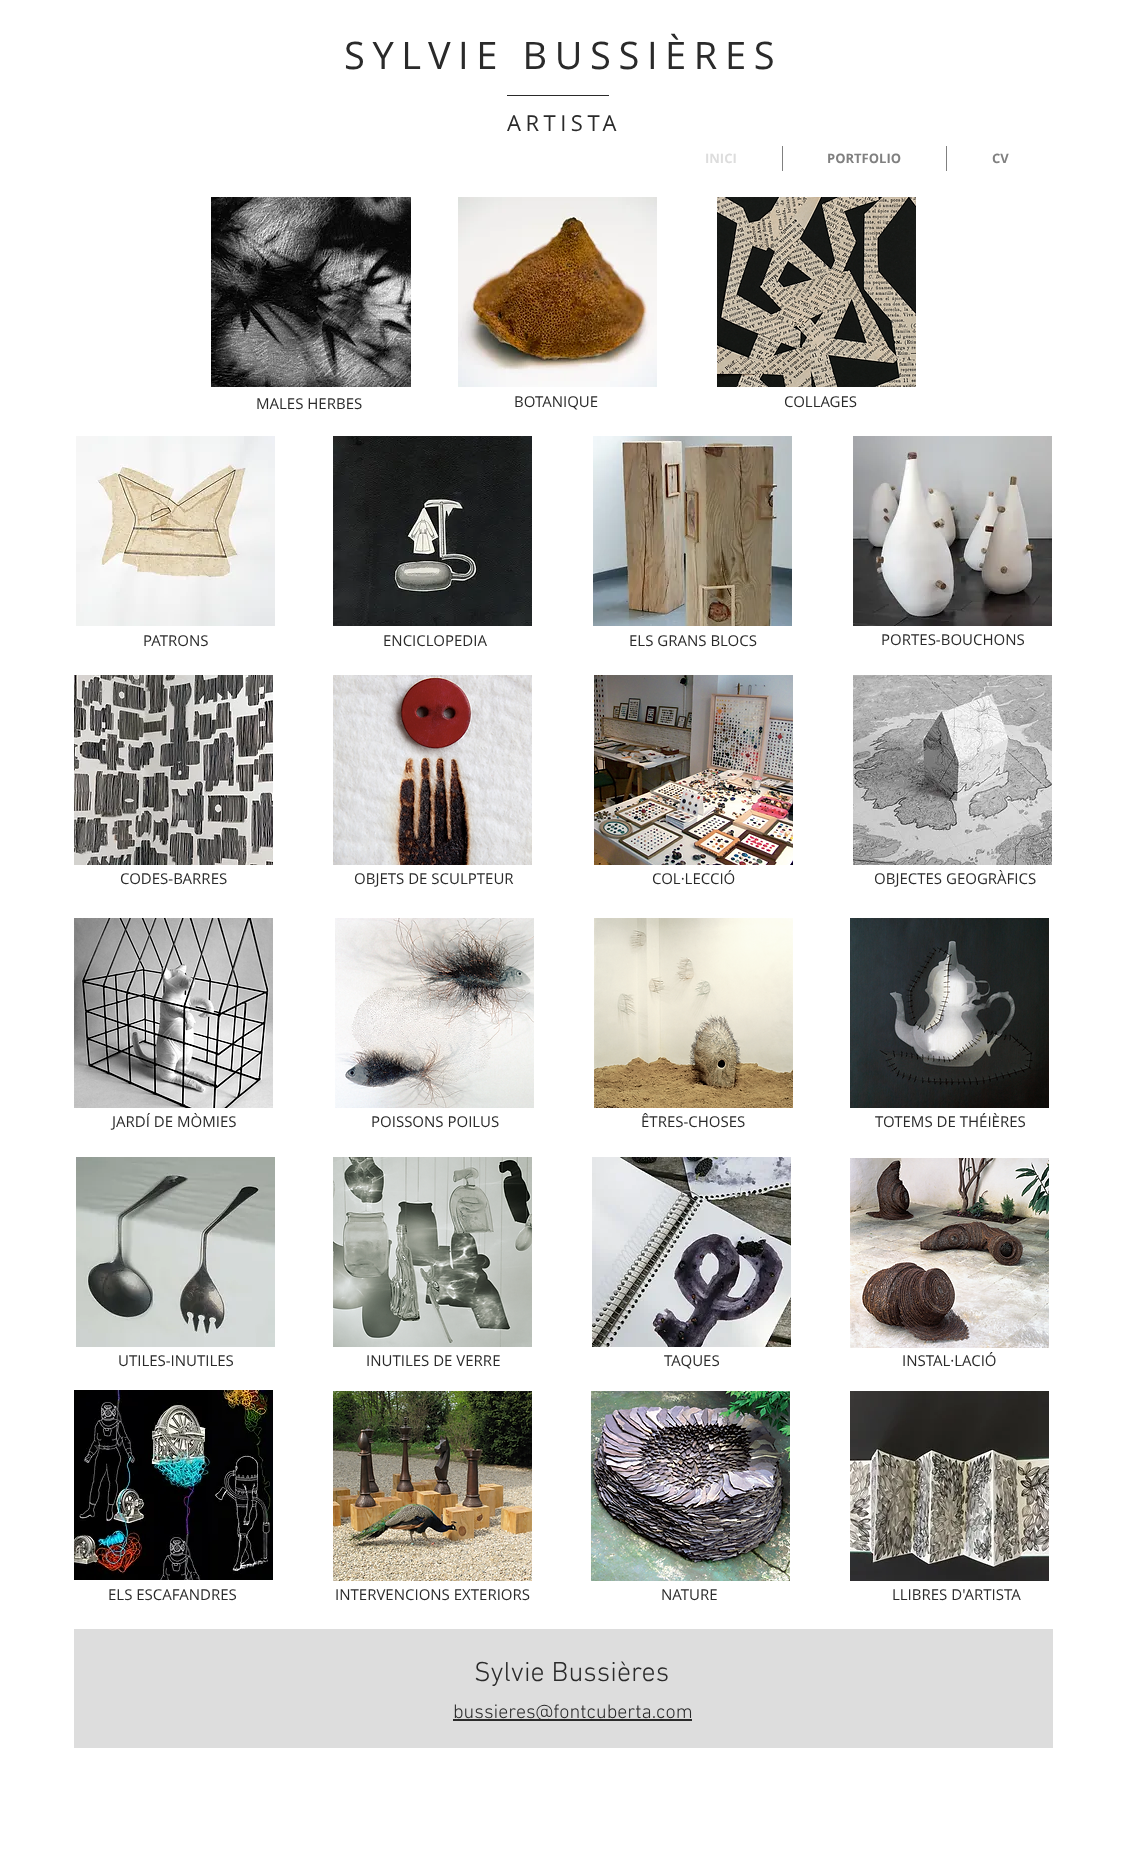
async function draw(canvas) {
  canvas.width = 1128
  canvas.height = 1866
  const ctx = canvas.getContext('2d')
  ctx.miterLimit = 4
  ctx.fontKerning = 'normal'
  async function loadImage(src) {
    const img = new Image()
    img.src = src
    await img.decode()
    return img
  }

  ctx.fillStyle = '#fff'
  ctx.fillRect(0, 0, 1128, 1866)
  ctx.letterSpacing = '7.6px'
  ctx.font = '38px Open Sans'
  ctx.fillStyle = '#2a2a2a'
  ctx.fillText('SYLVIE BUSSIÈRES', 344, 69)
  ctx.letterSpacing = '4.5px'
  ctx.font = '22px Open Sans'
  ctx.fillText('ARTISTA', 507, 131)
  ctx.fillRect(507, 95, 102, 1)
  ctx.letterSpacing = '0px'
  ctx.font = 'bold 13px Open Sans'
  ctx.fillStyle = '#ddd'
  ctx.fillText('INICI', 705, 163)
  ctx.fillStyle = '#808080'
  ctx.fillRect(782, 146, 1, 25)
  ctx.fillText('PORTFOLIO', 827, 163)
  ctx.fillRect(946, 146, 1, 25)
  ctx.fillText('CV', 992, 163)
  ctx.drawImage(await loadImage('image0.png'), 211, 197, 200, 190)
  ctx.font = '15px Open Sans'
  ctx.fillStyle = '#2a2a2a'
  ctx.fillText('MALES HERBES', 256, 409)
  ctx.drawImage(await loadImage('image1.png'), 458, 197, 199, 190)
  ctx.fillText('BOTANIQUE', 514, 407)
  ctx.drawImage(await loadImage('image2.png'), 717, 197, 199, 190)
  ctx.fillText('COLLAGES', 784, 407)
  ctx.drawImage(await loadImage('image3.png'), 333, 436, 199, 190)
  ctx.drawImage(await loadImage('image4.png'), 76, 436, 199, 190)
  ctx.fillText('PATRONS', 143, 646)
  ctx.fillText('ENCICLOPEDIA', 383, 646)
  ctx.drawImage(await loadImage('image5.png'), 593, 436, 199, 190)
  ctx.fillText('ELS GRANS BLOCS', 629, 646)
  ctx.drawImage(await loadImage('image6.png'), 853, 436, 199, 190)
  ctx.fillText('PORTES-BOUCHONS', 881, 645)
  ctx.drawImage(await loadImage('image7.png'), 74, 675, 199, 190)
  ctx.fillText('CODES-BARRES', 120, 884)
  ctx.drawImage(await loadImage('image8.png'), 333, 675, 199, 190)
  ctx.fillText('OBJETS DE SCULPTEUR', 354, 884)
  ctx.drawImage(await loadImage('image9.png'), 594, 675, 199, 190)
  ctx.fillText('COL·LECCIÓ', 652, 884)
  ctx.drawImage(await loadImage('image10.png'), 853, 675, 199, 190)
  ctx.fillText('OBJECTES GEOGRÀFICS', 874, 884)
  ctx.drawImage(await loadImage('image11.png'), 335, 918, 199, 190)
  ctx.drawImage(await loadImage('image12.png'), 594, 918, 199, 190)
  ctx.drawImage(await loadImage('image13.png'), 850, 918, 199, 190)
  ctx.drawImage(await loadImage('image14.png'), 74, 918, 199, 190)
  ctx.fillText('JARDÍ DE MÒMIES', 112, 1127)
  ctx.fillText('POISSONS POILUS', 371, 1127)
  ctx.fillText('ÊTRES-CHOSES', 641, 1127)
  ctx.fillText('TOTEMS DE THÉIÈRES', 875, 1127)
  ctx.drawImage(await loadImage('image15.png'), 76, 1157, 199, 190)
  ctx.fillText('UTILES-INUTILES', 118, 1366)
  ctx.drawImage(await loadImage('image16.png'), 333, 1157, 199, 190)
  ctx.fillText('INUTILES DE VERRE', 366, 1366)
  ctx.drawImage(await loadImage('image17.png'), 592, 1157, 199, 190)
  ctx.fillText('TAQUES', 664, 1366)
  ctx.drawImage(await loadImage('image18.png'), 850, 1158, 199, 190)
  ctx.fillText('INSTAL·LACIÓ', 902, 1366)
  ctx.drawImage(await loadImage('image19.png'), 74, 1390, 199, 190)
  ctx.fillText('ELS ESCAFANDRES', 108, 1600)
  ctx.drawImage(await loadImage('image20.png'), 333, 1391, 199, 190)
  ctx.fillText('INTERVENCIONS EXTERIORS', 335, 1600)
  ctx.drawImage(await loadImage('image21.png'), 591, 1391, 199, 190)
  ctx.fillText('NATURE', 661, 1600)
  ctx.drawImage(await loadImage('image22.png'), 850, 1391, 199, 190)
  ctx.fillText('LLIBRES D\'ARTISTA', 892, 1600)
  ctx.fillStyle = '#ddd'
  ctx.fillRect(74, 1629, 979, 119)
  ctx.font = '300 28px "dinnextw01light"'
  ctx.fillStyle = '#2a2a2a'
  ctx.fillText('Sylvie Bussières', 474, 1681)
  ctx.fillRect(453, 1719, 239, 2)
  ctx.font = '300 20px "dinnextw01light"'
  ctx.fillText('bussieres@fontcuberta.com', 453, 1718)
}

draw(document.querySelector('canvas'))
